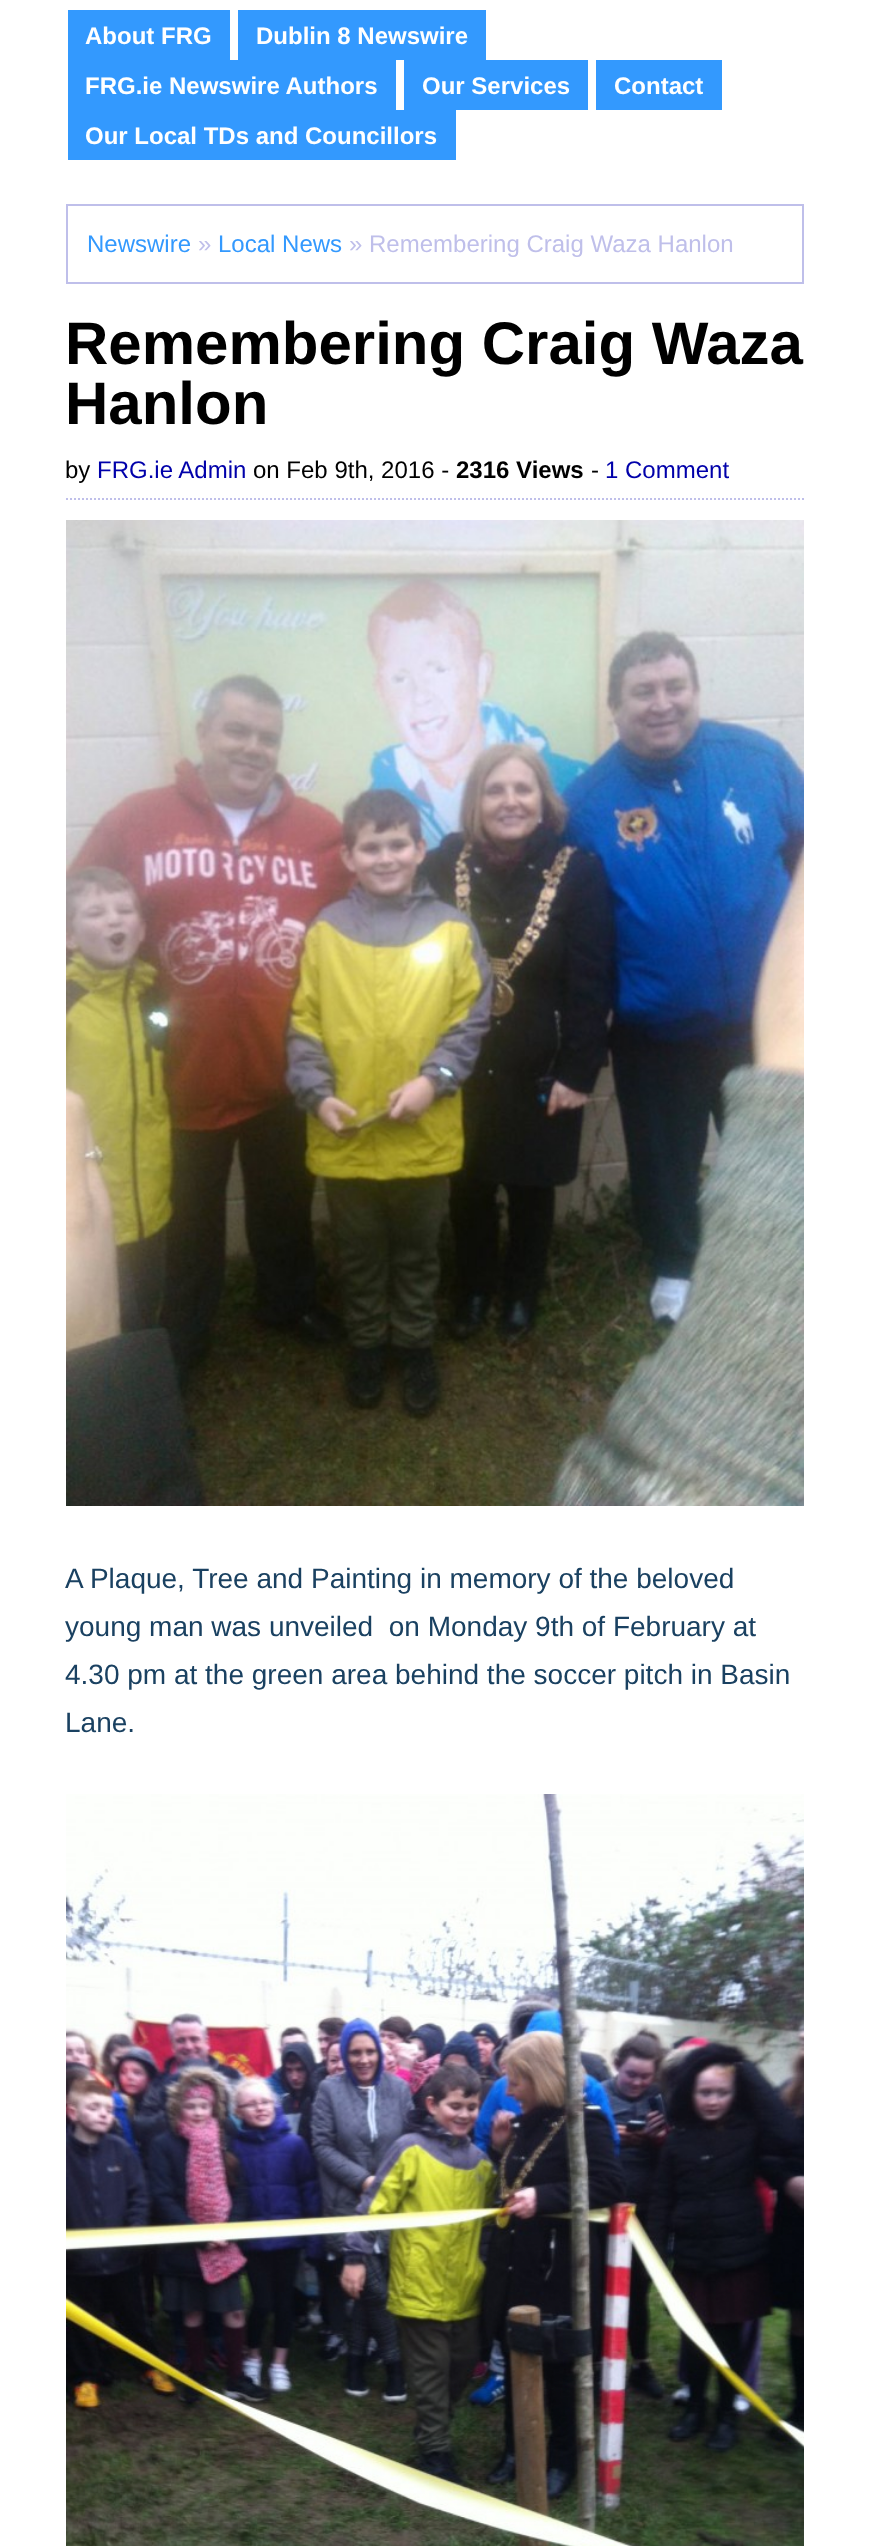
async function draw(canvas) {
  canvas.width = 870
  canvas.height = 2546
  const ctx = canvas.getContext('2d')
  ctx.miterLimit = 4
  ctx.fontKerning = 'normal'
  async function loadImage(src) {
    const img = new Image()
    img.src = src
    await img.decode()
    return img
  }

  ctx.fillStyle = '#fff'
  ctx.fillRect(0, 0, 870, 2546)
  ctx.fillStyle = '#3399fe'
  ctx.fillRect(68, 10, 162, 50)
  ctx.font = 'bold 24px Liberation Sans'
  ctx.fillStyle = '#fff'
  ctx.fillText('About FRG', 85, 44)
  ctx.fillStyle = '#3399fe'
  ctx.fillRect(238, 10, 248, 50)
  ctx.fillStyle = '#fff'
  ctx.fillText('Dublin 8 Newswire', 256, 44)
  ctx.fillStyle = '#3399fe'
  ctx.fillRect(68, 60, 328, 50)
  ctx.fillStyle = '#fff'
  ctx.fillText('FRG.ie Newswire Authors', 85, 94)
  ctx.fillStyle = '#3399fe'
  ctx.fillRect(404, 60, 184, 50)
  ctx.fillStyle = '#fff'
  ctx.fillText('Our Services', 422, 94)
  ctx.fillStyle = '#3399fe'
  ctx.fillRect(596, 60, 126, 50)
  ctx.fillStyle = '#fff'
  ctx.fillText('Contact', 614, 94)
  ctx.fillStyle = '#3399fe'
  ctx.fillRect(68, 110, 388, 50)
  ctx.fillStyle = '#fff'
  ctx.fillText('Our Local TDs and Councillors', 85, 144)
  ctx.strokeStyle = '#bfbfea'
  ctx.lineWidth = 2
  ctx.strokeRect(67, 205, 736, 78)
  ctx.font = '24px Liberation Sans'
  ctx.fillStyle = '#3399fe'
  ctx.fillText('Newswire', 87, 252)
  ctx.fillStyle = '#bfbfea'
  ctx.fillText('»', 198, 252)
  ctx.fillStyle = '#3399fe'
  ctx.fillText('Local News', 218, 252)
  ctx.fillStyle = '#bfbfea'
  ctx.fillText('» Remembering Craig Waza Hanlon', 349, 252)
  ctx.font = 'bold 60px Liberation Sans'
  ctx.fillStyle = '#000'
  ctx.fillText('Remembering Craig Waza', 65, 364)
  ctx.fillText('Hanlon', 65, 424)
  ctx.beginPath()
  ctx.moveTo(66, 499)
  ctx.lineTo(804, 499)
  ctx.setLineDash([2, 2])
  ctx.stroke()
  ctx.font = '24px Liberation Sans'
  ctx.fillText('by', 65, 478)
  ctx.fillStyle = '#00a'
  ctx.fillText('FRG.ie Admin', 97, 478)
  ctx.fillStyle = '#000'
  ctx.fillText('on Feb 9th, 2016 -', 253, 478)
  ctx.font = 'bold 24px Liberation Sans'
  ctx.fillText('2316 Views', 456, 478)
  ctx.font = '24px Liberation Sans'
  ctx.fillText('-', 591, 478)
  ctx.fillStyle = '#00a'
  ctx.fillText('1 Comment', 605, 478)
  ctx.drawImage(await loadImage('image0.png'), 66, 520, 738, 986)
  ctx.font = '28px Liberation Sans'
  ctx.fillStyle = '#1a4161'
  ctx.fillText('A Plaque, Tree and Painting in memory of the beloved', 65, 1588)
  ctx.fillText('young man was unveiled  on Monday 9th of February at', 65, 1636)
  ctx.fillText('4.30 pm at the green area behind the soccer pitch in Basin', 65, 1684)
  ctx.fillText('Lane.', 65, 1732)
  ctx.drawImage(await loadImage('image1.png'), 66, 1794, 738, 752)
}

draw(document.querySelector('canvas'))
